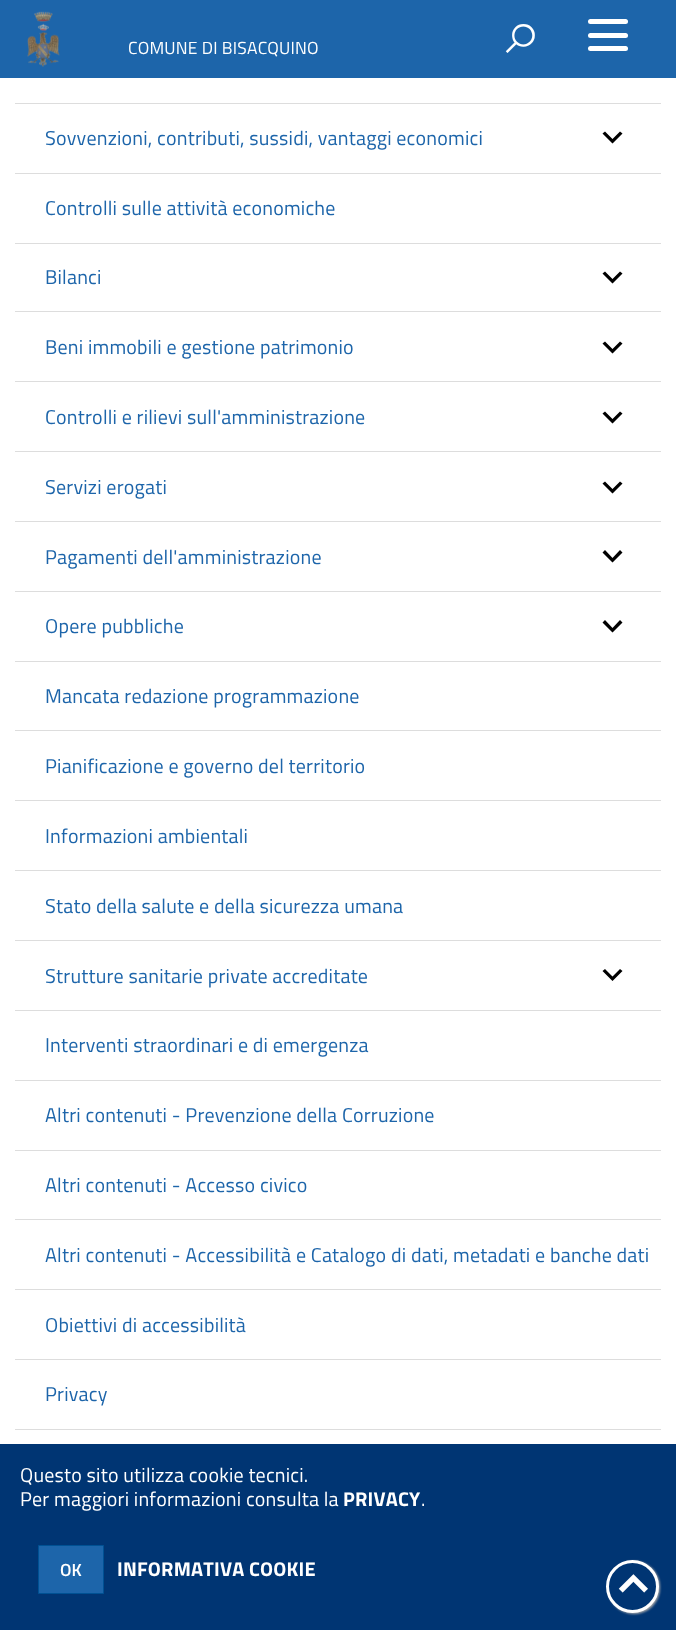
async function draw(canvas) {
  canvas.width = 676
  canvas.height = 1630
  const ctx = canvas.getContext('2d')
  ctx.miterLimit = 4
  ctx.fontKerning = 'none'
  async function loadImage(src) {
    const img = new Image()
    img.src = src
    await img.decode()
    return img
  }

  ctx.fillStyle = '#fff'
  ctx.fillRect(0, 0, 676, 1630)
  ctx.fillStyle = '#1d65aa'
  ctx.fillRect(0, 0, 676, 78)
  ctx.drawImage(await loadImage('image0.png'), 27, 11, 33, 56)
  ctx.letterSpacing = '0.2px'
  ctx.font = '17.5px Titillium Web'
  ctx.fillStyle = '#fff'
  ctx.fillText('COMUNE DI BISACQUINO', 128, 54)
  ctx.letterSpacing = '0px'
  ctx.font = 'bold 28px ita'
  ctx.fillText('🔍', 506, 51)
  ctx.beginPath()
  ctx.roundRect(588, 33, 40, 5, 2.5)
  ctx.fill()
  ctx.beginPath()
  ctx.roundRect(588, 19, 40, 5, 2.5)
  ctx.fill()
  ctx.beginPath()
  ctx.roundRect(588, 46, 40, 5, 2.5)
  ctx.fill()
  ctx.fillStyle = '#ddd'
  ctx.fillRect(15, 103, 646, 1)
  ctx.letterSpacing = '0.2px'
  ctx.font = '20px Titillium Web'
  ctx.fillStyle = '#1d65aa'
  ctx.fillText('Sovvenzioni, contributi, sussidi, vantaggi economici', 45, 145)
  ctx.fillStyle = '#000'
  ctx.beginPath()
  ctx.moveTo(605, 131.5)
  ctx.lineTo(602.5, 133.5)
  ctx.lineTo(612.5, 143.5)
  ctx.lineTo(622.5, 133.5)
  ctx.lineTo(620, 131.5)
  ctx.lineTo(612.5, 139)
  ctx.closePath()
  ctx.fill()
  ctx.fillStyle = '#ddd'
  ctx.fillRect(15, 173, 646, 1)
  ctx.fillStyle = '#1d65aa'
  ctx.fillText('Controlli sulle attività economiche', 45, 215)
  ctx.fillStyle = '#ddd'
  ctx.fillRect(15, 243, 646, 1)
  ctx.fillStyle = '#1d65aa'
  ctx.fillText('Bilanci', 45, 284)
  ctx.fillStyle = '#000'
  ctx.beginPath()
  ctx.moveTo(605, 271.5)
  ctx.lineTo(602.5, 273.5)
  ctx.lineTo(612.5, 283.5)
  ctx.lineTo(622.5, 273.5)
  ctx.lineTo(620, 271.5)
  ctx.lineTo(612.5, 279)
  ctx.closePath()
  ctx.fill()
  ctx.fillStyle = '#ddd'
  ctx.fillRect(15, 311, 646, 1)
  ctx.fillStyle = '#1d65aa'
  ctx.fillText('Beni immobili e gestione patrimonio', 45, 354)
  ctx.fillStyle = '#000'
  ctx.beginPath()
  ctx.moveTo(605, 341.5)
  ctx.lineTo(602.5, 343.5)
  ctx.lineTo(612.5, 353.5)
  ctx.lineTo(622.5, 343.5)
  ctx.lineTo(620, 341.5)
  ctx.lineTo(612.5, 349)
  ctx.closePath()
  ctx.fill()
  ctx.fillStyle = '#ddd'
  ctx.fillRect(15, 381, 646, 1)
  ctx.fillStyle = '#1d65aa'
  ctx.fillText('Controlli e rilievi sull\'amministrazione', 45, 424)
  ctx.fillStyle = '#000'
  ctx.beginPath()
  ctx.moveTo(605, 411.5)
  ctx.lineTo(602.5, 413.5)
  ctx.lineTo(612.5, 423.5)
  ctx.lineTo(622.5, 413.5)
  ctx.lineTo(620, 411.5)
  ctx.lineTo(612.5, 419)
  ctx.closePath()
  ctx.fill()
  ctx.fillStyle = '#ddd'
  ctx.fillRect(15, 451, 646, 1)
  ctx.fillStyle = '#1d65aa'
  ctx.fillText('Servizi erogati', 45, 494)
  ctx.fillStyle = '#000'
  ctx.beginPath()
  ctx.moveTo(605, 481.5)
  ctx.lineTo(602.5, 483.5)
  ctx.lineTo(612.5, 493.5)
  ctx.lineTo(622.5, 483.5)
  ctx.lineTo(620, 481.5)
  ctx.lineTo(612.5, 489)
  ctx.closePath()
  ctx.fill()
  ctx.fillStyle = '#ddd'
  ctx.fillRect(15, 521, 646, 1)
  ctx.fillStyle = '#1d65aa'
  ctx.fillText('Pagamenti dell\'amministrazione', 45, 564)
  ctx.fillStyle = '#000'
  ctx.beginPath()
  ctx.moveTo(605, 550)
  ctx.lineTo(602.5, 552.5)
  ctx.lineTo(612.5, 562.5)
  ctx.lineTo(622.5, 552.5)
  ctx.lineTo(620, 550)
  ctx.lineTo(612.5, 558)
  ctx.closePath()
  ctx.fill()
  ctx.fillStyle = '#ddd'
  ctx.fillRect(15, 591, 646, 1)
  ctx.fillStyle = '#1d65aa'
  ctx.fillText('Opere pubbliche', 45, 633)
  ctx.fillStyle = '#000'
  ctx.beginPath()
  ctx.moveTo(605, 620)
  ctx.lineTo(602.5, 622.5)
  ctx.lineTo(612.5, 632.5)
  ctx.lineTo(622.5, 622.5)
  ctx.lineTo(620, 620)
  ctx.lineTo(612.5, 628)
  ctx.closePath()
  ctx.fill()
  ctx.fillStyle = '#ddd'
  ctx.fillRect(15, 661, 646, 1)
  ctx.fillStyle = '#1d65aa'
  ctx.fillText('Mancata redazione programmazione', 45, 703)
  ctx.fillStyle = '#ddd'
  ctx.fillRect(15, 730, 646, 1)
  ctx.fillStyle = '#1d65aa'
  ctx.fillText('Pianificazione e governo del territorio', 45, 773)
  ctx.fillStyle = '#ddd'
  ctx.fillRect(15, 800, 646, 1)
  ctx.fillStyle = '#1d65aa'
  ctx.fillText('Informazioni ambientali', 45, 843)
  ctx.fillStyle = '#ddd'
  ctx.fillRect(15, 870, 646, 1)
  ctx.fillStyle = '#1d65aa'
  ctx.fillText('Stato della salute e della sicurezza umana', 45, 913)
  ctx.fillStyle = '#ddd'
  ctx.fillRect(15, 940, 646, 1)
  ctx.fillStyle = '#1d65aa'
  ctx.fillText('Strutture sanitarie private accreditate', 45, 983)
  ctx.fillStyle = '#000'
  ctx.beginPath()
  ctx.moveTo(605, 969)
  ctx.lineTo(602.5, 971)
  ctx.lineTo(612.5, 981)
  ctx.lineTo(622.5, 971)
  ctx.lineTo(620, 969)
  ctx.lineTo(612.5, 976.5)
  ctx.closePath()
  ctx.fill()
  ctx.fillStyle = '#ddd'
  ctx.fillRect(15, 1010, 646, 1)
  ctx.fillStyle = '#1d65aa'
  ctx.fillText('Interventi straordinari e di emergenza', 45, 1052)
  ctx.fillStyle = '#ddd'
  ctx.fillRect(15, 1080, 646, 1)
  ctx.fillStyle = '#1d65aa'
  ctx.fillText('Altri contenuti - Prevenzione della Corruzione', 45, 1122)
  ctx.fillStyle = '#ddd'
  ctx.fillRect(15, 1150, 646, 1)
  ctx.fillStyle = '#1d65aa'
  ctx.fillText('Altri contenuti - Accesso civico', 45, 1192)
  ctx.fillStyle = '#ddd'
  ctx.fillRect(15, 1219, 646, 1)
  ctx.fillStyle = '#1d65aa'
  ctx.fillText('Altri contenuti - Accessibilità e Catalogo di dati, metadati e banche dati', 45, 1262)
  ctx.fillStyle = '#ddd'
  ctx.fillRect(15, 1289, 646, 1)
  ctx.fillStyle = '#1d65aa'
  ctx.fillText('Obiettivi di accessibilità', 45, 1332)
  ctx.fillStyle = '#ddd'
  ctx.fillRect(15, 1359, 646, 1)
  ctx.fillStyle = '#1d65aa'
  ctx.fillText('Privacy', 45, 1401)
  ctx.fillStyle = '#ddd'
  ctx.fillRect(15, 1429, 646, 1)
  ctx.fillStyle = '#003573'
  ctx.fillRect(0, 1444, 676, 186)
  ctx.fillStyle = '#fff'
  ctx.fillText('Questo sito utilizza cookie tecnici.', 20, 1482)
  ctx.fillText('Per maggiori informazioni consulta la', 20, 1506)
  ctx.font = 'bold 20px Titillium Web'
  ctx.fillText('PRIVACY', 343, 1506)
  ctx.font = '20px Titillium Web'
  ctx.fillText('.', 421, 1506)
  ctx.fillStyle = '#1d65aa'
  ctx.beginPath()
  ctx.rect(38.5, 1545.5, 65, 48)
  ctx.fill()
  ctx.strokeStyle = '#005193'
  ctx.stroke()
  ctx.letterSpacing = '0px'
  ctx.font = '600 17.5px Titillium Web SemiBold'
  ctx.fillStyle = '#fff'
  ctx.fillText('OK', 60, 1576)
  ctx.letterSpacing = '0.2px'
  ctx.font = 'bold 20px Titillium Web'
  ctx.fillText('INFORMATIVA COOKIE', 117, 1576)
  ctx.fillStyle = '#aaa'
  ctx.filter = 'blur(1px)'
  ctx.beginPath()
  ctx.roundRect(608, 1561, 52, 53, 26)
  ctx.fill()
  ctx.filter = 'none'
  ctx.fillStyle = '#003573'
  ctx.beginPath()
  ctx.arc(632.5, 1586.5, 25, 0, 2 * Math.PI)
  ctx.fill()
  ctx.strokeStyle = '#fff'
  ctx.lineWidth = 3
  ctx.stroke()
  ctx.letterSpacing = '0px'
  ctx.font = 'bold 28px ita'
  ctx.fillStyle = '#fff'
  ctx.fillText('⏷', 619, 1596)
}

draw(document.querySelector('canvas'))
